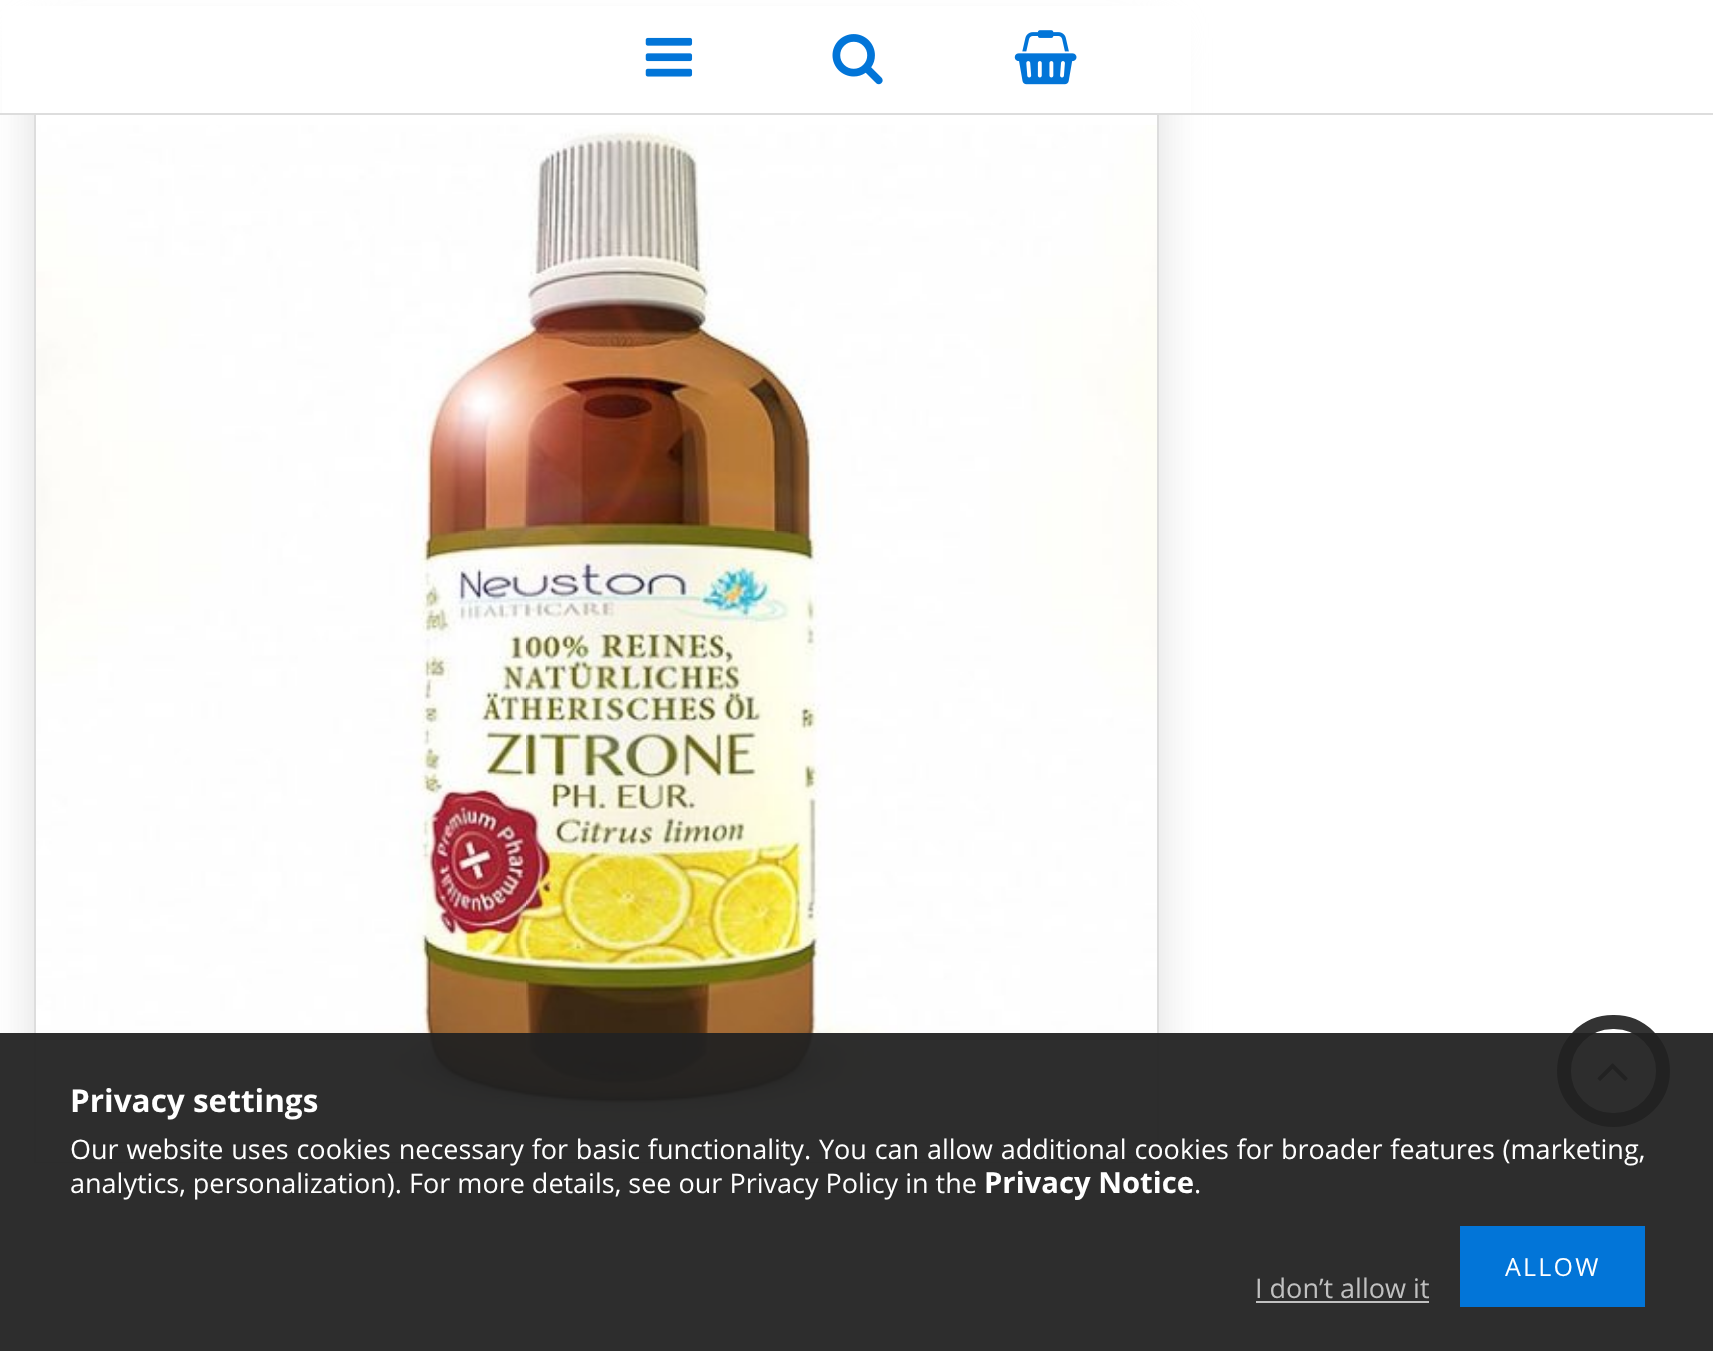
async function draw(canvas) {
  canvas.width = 1713
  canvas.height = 1351
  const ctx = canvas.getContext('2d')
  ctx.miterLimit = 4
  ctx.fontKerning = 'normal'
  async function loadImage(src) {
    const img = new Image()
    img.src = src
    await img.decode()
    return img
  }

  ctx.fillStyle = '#fff'
  ctx.fillRect(0, 0, 1713, 1351)
  ctx.save()
  ctx.beginPath()
  ctx.moveTo(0, 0)
  ctx.lineTo(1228, 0)
  ctx.lineTo(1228, 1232)
  ctx.lineTo(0, 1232)
  ctx.closePath()
  ctx.moveTo(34, 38)
  ctx.lineTo(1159, 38)
  ctx.lineTo(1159, 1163)
  ctx.lineTo(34, 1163)
  ctx.closePath()
  ctx.clip('evenodd')
  ctx.fillStyle = '#ddd'
  ctx.filter = 'blur(22.5px)'
  ctx.beginPath()
  ctx.rect(34, 38, 1125, 1125)
  ctx.fill()
  ctx.filter = 'none'
  ctx.restore()
  ctx.strokeStyle = '#ddd'
  ctx.lineWidth = 2
  ctx.strokeRect(35, 39, 1123, 1123)
  ctx.drawImage(await loadImage('image0.png'), 36, 125, 1121, 1037)
  ctx.fillRect(2, 6, 1189, 107)
  ctx.fillStyle = '#ddd'
  ctx.fillRect(0, 113, 1713, 2)
  ctx.drawImage(await loadImage('image1.png'), 645, 37, 48, 40)
  ctx.drawImage(await loadImage('image2.png'), 832, 34, 51, 51)
  ctx.drawImage(await loadImage('image3.png'), 1014, 30, 63, 55)
  ctx.beginPath()
  ctx.roundRect(1564, 1022, 99, 98, 49)
  ctx.strokeStyle = '#333'
  ctx.lineWidth = 14
  ctx.stroke()
  ctx.drawImage(await loadImage('image4.png'), 1597, 1063, 31, 18)
  ctx.fillStyle = '#222222f2'
  ctx.fillRect(0, 1033, 1713, 318)
  ctx.font = 'bold 31.5px Open Sans'
  ctx.fillStyle = '#fff'
  ctx.fillText('Privacy settings', 70, 1112)
  ctx.wordSpacing = '0.75px'
  ctx.font = '27px Open Sans'
  ctx.fillText('Our website uses cookies necessary for basic functionality. You can allow additional cookies for broader features (marketing,', 70, 1159)
  ctx.wordSpacing = '0px'
  ctx.fillText('analytics, personalization). For more details, see our Privacy Policy in the', 70, 1193)
  ctx.font = 'bold 29.25px Open Sans'
  ctx.fillText('Privacy Notice', 984, 1193)
  ctx.font = '27px Open Sans'
  ctx.fillText('.', 1194, 1193)
  ctx.fillStyle = '#0275d8'
  ctx.fillRect(1460, 1226, 185, 81)
  ctx.letterSpacing = '2.25px'
  ctx.font = '25px Open Sans'
  ctx.fillStyle = '#fff'
  ctx.fillText('ALLOW', 1505, 1276)
  ctx.letterSpacing = '0px'
  ctx.font = '27px Open Sans'
  ctx.fillStyle = '#c0c0c0'
  ctx.fillText('I don’t allow it', 1255, 1298)
  ctx.fillRect(1256, 1301, 173, 2)
}

draw(document.querySelector('canvas'))
